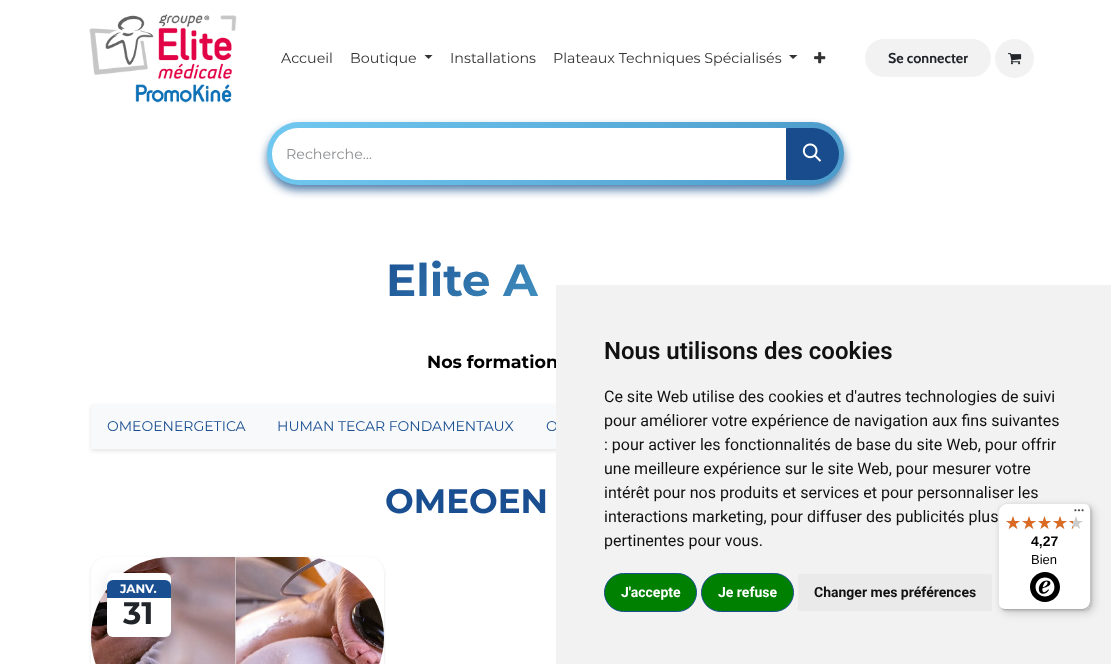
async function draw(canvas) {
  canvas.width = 1111
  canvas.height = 664
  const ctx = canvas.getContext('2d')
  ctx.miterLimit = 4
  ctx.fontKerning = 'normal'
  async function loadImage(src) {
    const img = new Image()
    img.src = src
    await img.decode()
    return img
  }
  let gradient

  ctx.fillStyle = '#fff'
  ctx.fillRect(0, 0, 1111, 664)
  ctx.drawImage(await loadImage('image0.png'), 89, 14, 148, 89)
  ctx.font = '14.25px Montserrat'
  ctx.fillStyle = '#333'
  ctx.fillText('Accueil', 281, 63)
  ctx.fillText('Boutique', 350, 63)
  ctx.beginPath()
  ctx.moveTo(424.5, 55)
  ctx.lineTo(432.5, 55)
  ctx.lineTo(428.5, 59)
  ctx.closePath()
  ctx.fill()
  ctx.fillText('Installations', 450, 63)
  ctx.fillText('Plateaux Techniques Spécialisés', 553, 63)
  ctx.beginPath()
  ctx.moveTo(789, 55)
  ctx.lineTo(797.5, 55)
  ctx.lineTo(793, 59)
  ctx.closePath()
  ctx.fill()
  ctx.drawImage(await loadImage('image1.png'), 814, 52, 12, 12)
  ctx.fillStyle = '#f2f2f2'
  ctx.beginPath()
  ctx.roundRect(865, 39, 126, 38, 19)
  ctx.fill()
  ctx.font = 'bold 14.25px Cabin'
  ctx.fillStyle = '#212529'
  ctx.fillText('Se connecter', 888, 63)
  ctx.fillStyle = '#f2f2f2'
  ctx.beginPath()
  ctx.arc(1014.5, 58.5, 19.5, 0, 2 * Math.PI)
  ctx.fill()
  ctx.drawImage(await loadImage('image2.png'), 1007, 53, 15, 12)
  ctx.fillStyle = '#064382b3'
  ctx.filter = 'blur(5px)'
  ctx.beginPath()
  ctx.roundRect(267, 128, 577, 62, 31)
  ctx.fill()
  ctx.filter = 'none'
  gradient = ctx.createLinearGradient(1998, 307, 267, 125)
  gradient.addColorStop(0, '#064382')
  gradient.addColorStop(1, '#70c8f0')
  ctx.fillStyle = gradient
  ctx.beginPath()
  ctx.roundRect(267, 122, 577, 63, 31.5)
  ctx.fill()
  ctx.fillStyle = '#fff'
  ctx.beginPath()
  ctx.roundRect(272, 128, 515, 52, [26, 0, 0, 26])
  ctx.fill()
  ctx.font = '14.25px Montserrat'
  ctx.fillStyle = '#8d8f92'
  ctx.fillText('Recherche…', 286, 159)
  ctx.fillStyle = '#184c8d'
  ctx.beginPath()
  ctx.roundRect(786.5, 128.5, 52, 51, [0, 25.5, 25.5, 0])
  ctx.fill()
  ctx.strokeStyle = '#184c8d'
  ctx.stroke()
  ctx.drawImage(await loadImage('image3.png'), 802, 143, 20, 19)
  ctx.font = 'bold 45px Montserrat'
  gradient = ctx.createLinearGradient(452, 180, 659, 387)
  gradient.addColorStop(0, '#194e91')
  gradient.addColorStop(1, '#68d0ec')
  ctx.fillStyle = gradient
  ctx.fillText('Elite A', 386, 296)
  ctx.font = 'bold 17.5px Montserrat'
  ctx.fillStyle = '#000'
  ctx.fillText('Nos formation', 427, 368)
  ctx.fillStyle = '#0000001a'
  ctx.filter = 'blur(2px)'
  ctx.beginPath()
  ctx.rect(91, 406, 930, 45)
  ctx.fill()
  ctx.filter = 'none'
  ctx.fillStyle = '#f8f9fa'
  ctx.fillRect(91, 404, 465, 45)
  ctx.font = '14px Montserrat'
  ctx.fillStyle = '#194e91'
  ctx.fillText('OMEOENERGETICA', 107, 431)
  ctx.fillText('HUMAN TECAR FONDAMENTAUX', 277, 431)
  ctx.fillText('O', 546, 431)
  ctx.font = 'bold 34px Montserrat'
  ctx.fillText('OMEOEN', 385, 513)
  ctx.fillStyle = '#0000001a'
  ctx.filter = 'blur(1.5px)'
  ctx.beginPath()
  ctx.roundRect(91, 558, 293, 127, 16)
  ctx.fill()
  ctx.filter = 'none'
  ctx.fillStyle = '#fff'
  ctx.beginPath()
  ctx.roundRect(91, 557, 293, 107, [16, 16, 0, 0])
  ctx.fill()
  ctx.drawImage(await loadImage('image4.png'), 91, 557, 293, 107)
  ctx.fillStyle = '#0000001f'
  ctx.filter = 'blur(8px)'
  ctx.beginPath()
  ctx.roundRect(107, 577, 64, 64, 6)
  ctx.fill()
  ctx.filter = 'none'
  ctx.fillStyle = '#fff'
  ctx.beginPath()
  ctx.roundRect(107, 573, 64, 64, 6)
  ctx.fill()
  ctx.fillStyle = '#194e91'
  ctx.beginPath()
  ctx.roundRect(107, 580, 64, 18, [6, 6, 0, 0])
  ctx.fill()
  ctx.font = 'bold 12px Montserrat'
  ctx.fillStyle = '#fff'
  ctx.fillText('JANV.', 120, 593)
  ctx.font = 'bold 31px Montserrat'
  ctx.fillStyle = '#212529'
  ctx.fillText('31', 123, 624)
  ctx.fillStyle = '#f2f2f2'
  ctx.fillRect(556, 285, 555, 379)
  ctx.font = '600 24px Roboto'
  ctx.fillStyle = '#111'
  ctx.fillText('Nous utilisons des cookies', 604, 359)
  ctx.font = '16px Roboto'
  ctx.fillText('Ce site Web utilise des cookies et d\'autres technologies de suivi', 604, 402)
  ctx.fillText('pour améliorer votre expérience de navigation aux fins suivantes', 604, 426)
  ctx.fillText(': pour activer les fonctionnalités de base du site Web, pour offrir', 604, 450)
  ctx.fillText('une meilleure expérience sur le site Web, pour mesurer votre', 604, 474)
  ctx.fillText('intérêt pour nos produits et services et pour personnaliser les', 604, 498)
  ctx.fillText('interactions marketing, pour diffuser des publicités plus', 604, 522)
  ctx.fillText('pertinentes pour vous.', 604, 546)
  ctx.fillStyle = '#008000'
  ctx.beginPath()
  ctx.roundRect(604.5, 573.5, 92, 38, 19)
  ctx.fill()
  ctx.strokeStyle = '#194e91'
  ctx.stroke()
  ctx.font = 'bold 14px Roboto'
  ctx.fillStyle = '#fff'
  ctx.fillText('J\'accepte', 621, 597)
  ctx.fillStyle = '#008000'
  ctx.beginPath()
  ctx.roundRect(701.5, 573.5, 92, 38, 19)
  ctx.fill()
  ctx.stroke()
  ctx.fillStyle = '#fff'
  ctx.fillText('Je refuse', 718, 597)
  ctx.fillStyle = '#eaeaea'
  ctx.beginPath()
  ctx.roundRect(798, 574, 194, 37, 2)
  ctx.fill()
  ctx.fillStyle = '#111'
  ctx.fillText('Changer mes préférences', 814, 597)
  ctx.fillStyle = '#00000026'
  ctx.filter = 'blur(4px)'
  ctx.beginPath()
  ctx.roundRect(1001, 506, 93, 107, 8)
  ctx.fill()
  ctx.filter = 'none'
  ctx.filter = 'blur(1px)'
  ctx.beginPath()
  ctx.roundRect(999, 504, 93, 107, 8)
  ctx.fill()
  ctx.filter = 'none'
  ctx.fillStyle = '#fff'
  ctx.beginPath()
  ctx.roundRect(998, 503, 93, 107, 8)
  ctx.fill()
  ctx.fillStyle = '#0000001a'
  ctx.beginPath()
  ctx.moveTo(1007, 504)
  ctx.lineTo(1084, 504)
  ctx.bezierCurveTo(1086, 504, 1088, 505, 1090, 507)
  ctx.bezierCurveTo(1088, 505, 1086, 503, 1083, 503)
  ctx.lineTo(1006, 503)
  ctx.bezierCurveTo(1002, 503, 998, 507, 998, 511)
  ctx.lineTo(998, 602)
  ctx.bezierCurveTo(998, 605, 1000, 607, 1002, 609)
  ctx.bezierCurveTo(1000, 607, 999, 605, 999, 603)
  ctx.lineTo(999, 512)
  ctx.bezierCurveTo(999, 508, 1003, 504, 1007, 504)
  ctx.closePath()
  ctx.fill()
  ctx.fillStyle = '#00000033'
  ctx.beginPath()
  ctx.moveTo(999, 606)
  ctx.bezierCurveTo(1001, 608, 1003, 610, 1006, 610)
  ctx.lineTo(1083, 610)
  ctx.bezierCurveTo(1087, 610, 1091, 606, 1091, 602)
  ctx.lineTo(1091, 511)
  ctx.bezierCurveTo(1091, 508, 1089, 506, 1087, 504)
  ctx.bezierCurveTo(1089, 506, 1090, 508, 1090, 510)
  ctx.lineTo(1090, 601)
  ctx.bezierCurveTo(1090, 605, 1086, 609, 1082, 609)
  ctx.lineTo(1005, 609)
  ctx.bezierCurveTo(1003, 609, 1001, 608, 999, 606)
  ctx.closePath()
  ctx.fill()
  ctx.fillStyle = '#32323233'
  ctx.beginPath()
  ctx.moveTo(1000, 607)
  ctx.bezierCurveTo(1001, 609, 1004, 610, 1006, 610)
  ctx.lineTo(1083, 610)
  ctx.bezierCurveTo(1087, 610, 1091, 606, 1091, 602)
  ctx.lineTo(1091, 511)
  ctx.bezierCurveTo(1091, 509, 1090, 506, 1088, 505)
  ctx.bezierCurveTo(1089, 506, 1090, 508, 1090, 510)
  ctx.lineTo(1090, 601)
  ctx.bezierCurveTo(1090, 606, 1087, 609, 1082, 609)
  ctx.lineTo(1005, 609)
  ctx.bezierCurveTo(1003, 609, 1001, 608, 1000, 607)
  ctx.closePath()
  ctx.fill()
  ctx.fillStyle = '#ffffff4d'
  ctx.beginPath()
  ctx.moveTo(1082, 610)
  ctx.lineTo(1083, 610)
  ctx.bezierCurveTo(1087, 610, 1091, 606, 1091, 602)
  ctx.lineTo(1091, 511)
  ctx.bezierCurveTo(1091, 509, 1090, 506, 1088, 505)
  ctx.bezierCurveTo(1089, 506, 1090, 508, 1090, 510)
  ctx.lineTo(1090, 602)
  ctx.bezierCurveTo(1090, 606, 1087, 610, 1082, 610)
  ctx.closePath()
  ctx.fill()
  ctx.drawImage(await loadImage('image5.png'), 1074, 509, 10, 3)
  ctx.drawImage(await loadImage('image6.png'), 1006, 516, 14, 13)
  ctx.drawImage(await loadImage('image6.png'), 1022, 516, 14, 13)
  ctx.drawImage(await loadImage('image7.png'), 1038, 516, 13, 13)
  ctx.drawImage(await loadImage('image6.png'), 1053, 516, 14, 13)
  ctx.drawImage(await loadImage('image6.png'), 1069, 516, 14, 13)
  ctx.drawImage(await loadImage('image8.png'), 1006, 516, 14, 13)
  ctx.drawImage(await loadImage('image8.png'), 1022, 516, 14, 13)
  ctx.drawImage(await loadImage('image9.png'), 1038, 516, 13, 13)
  ctx.drawImage(await loadImage('image8.png'), 1053, 516, 14, 13)
  ctx.drawImage(await loadImage('image10.png'), 1069, 521, 4, 8)
  ctx.font = 'bold 14px Liberation Sans'
  ctx.fillStyle = '#000'
  ctx.fillText('4,27', 1031, 546)
  ctx.font = '13px Liberation Sans'
  ctx.fillText('Bien', 1031, 564)
  ctx.drawImage(await loadImage('image11.png'), 1030, 572, 30, 30)
}

draw(document.querySelector('canvas'))
